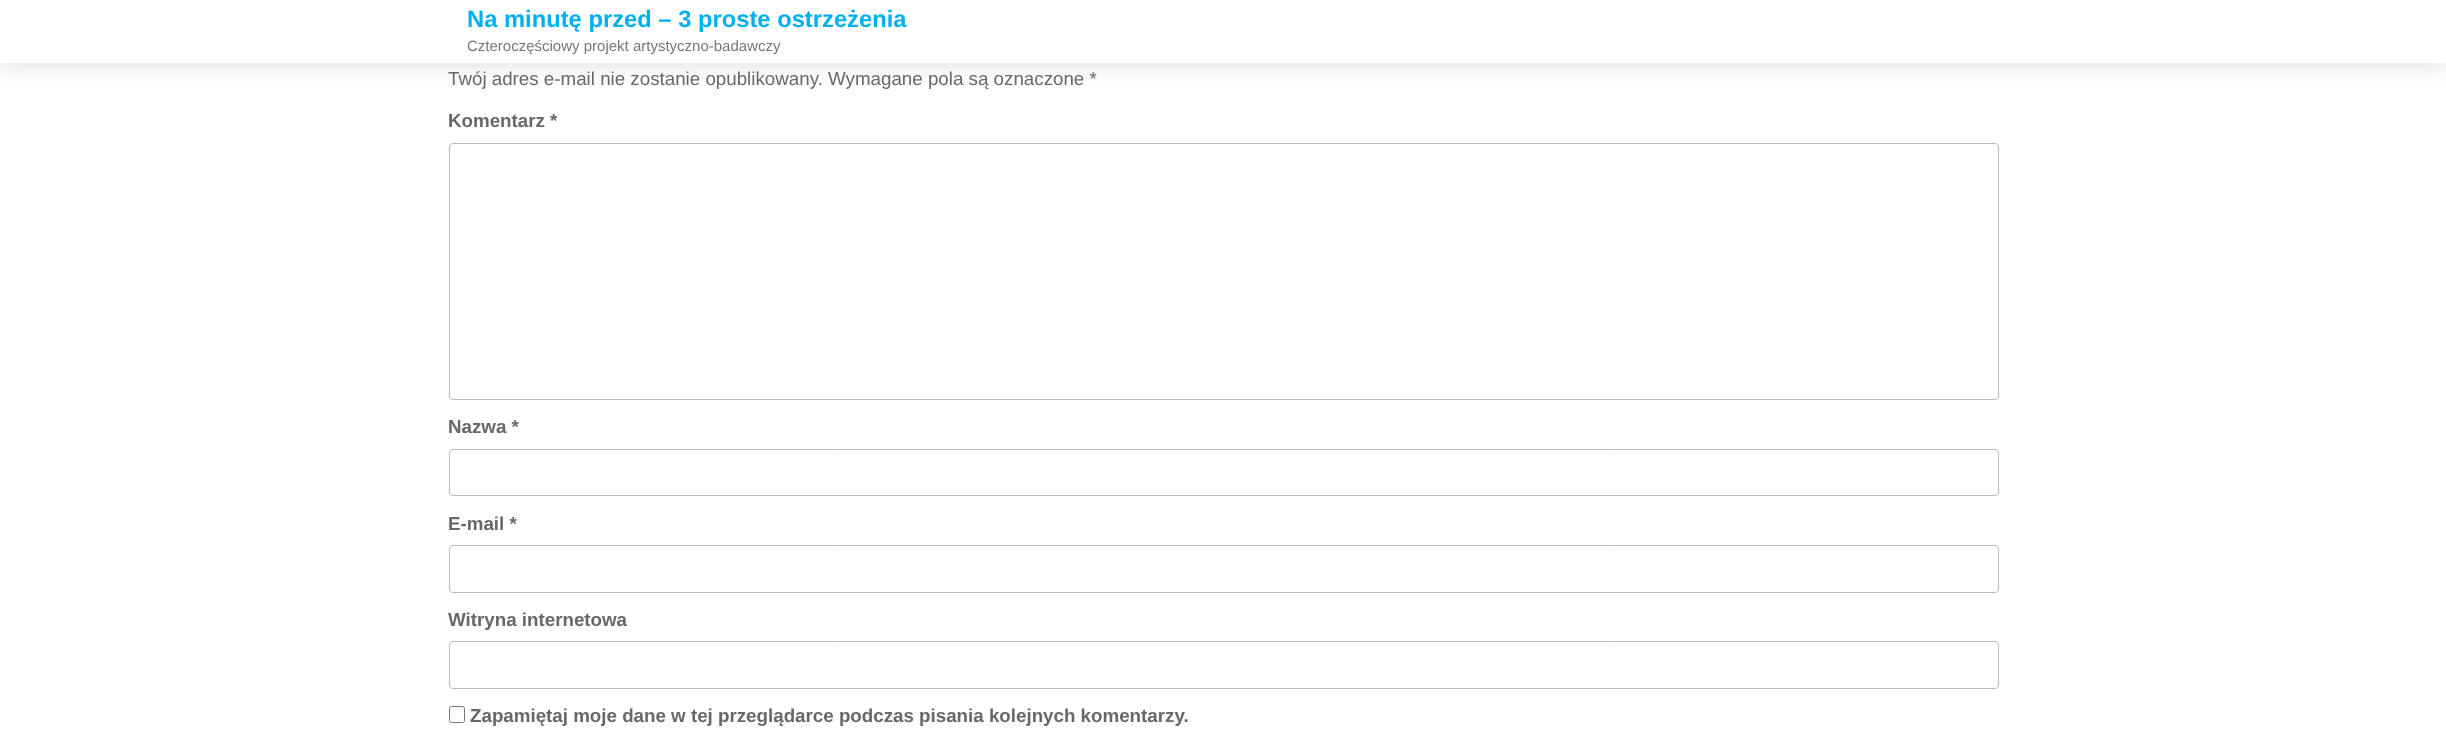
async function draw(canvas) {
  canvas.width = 2446
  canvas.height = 733
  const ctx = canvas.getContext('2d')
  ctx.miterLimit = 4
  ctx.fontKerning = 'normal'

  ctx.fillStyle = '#fff'
  ctx.fillRect(0, 0, 2446, 733)
  ctx.fillStyle = '#0000001a'
  ctx.filter = 'blur(10px)'
  ctx.beginPath()
  ctx.rect(0, 5, 2446, 63)
  ctx.fill()
  ctx.filter = 'none'
  ctx.fillStyle = '#fff'
  ctx.fillRect(0, 0, 2446, 63)
  ctx.font = 'bold 23.75px Liberation Sans'
  ctx.fillStyle = '#00aff2'
  ctx.fillText('Na minutę przed – 3 proste ostrzeżenia', 467, 27)
  ctx.font = '15px Liberation Sans'
  ctx.fillStyle = '#777'
  ctx.fillText('Czteroczęściowy projekt artystyczno-badawczy', 467, 51)
  ctx.font = '18.75px Liberation Sans'
  ctx.fillStyle = '#686868'
  ctx.fillText('Twój adres e-mail nie zostanie opublikowany. Wymagane pola są oznaczone *', 448, 85)
  ctx.font = 'bold 18.75px Liberation Sans'
  ctx.fillText('Komentarz *', 448, 127)
  ctx.beginPath()
  ctx.roundRect(449.5, 143.5, 1549, 256, 3.5)
  ctx.strokeStyle = '#bbb'
  ctx.stroke()
  ctx.fillText('Nazwa *', 448, 433)
  ctx.beginPath()
  ctx.roundRect(449.5, 449.5, 1549, 46, 3.5)
  ctx.stroke()
  ctx.fillText('E-mail *', 448, 530)
  ctx.beginPath()
  ctx.roundRect(449.5, 545.5, 1549, 47, 3.5)
  ctx.stroke()
  ctx.fillText('Witryna internetowa', 448, 626)
  ctx.beginPath()
  ctx.roundRect(449.5, 641.5, 1549, 47, 3.5)
  ctx.stroke()
  ctx.beginPath()
  ctx.roundRect(449.5, 706.5, 15, 16, 2)
  ctx.strokeStyle = '#767676'
  ctx.stroke()
  ctx.fillText('Zapamiętaj moje dane w tej przeglądarce podczas pisania kolejnych komentarzy.', 470, 722)
}

draw(document.querySelector('canvas'))
